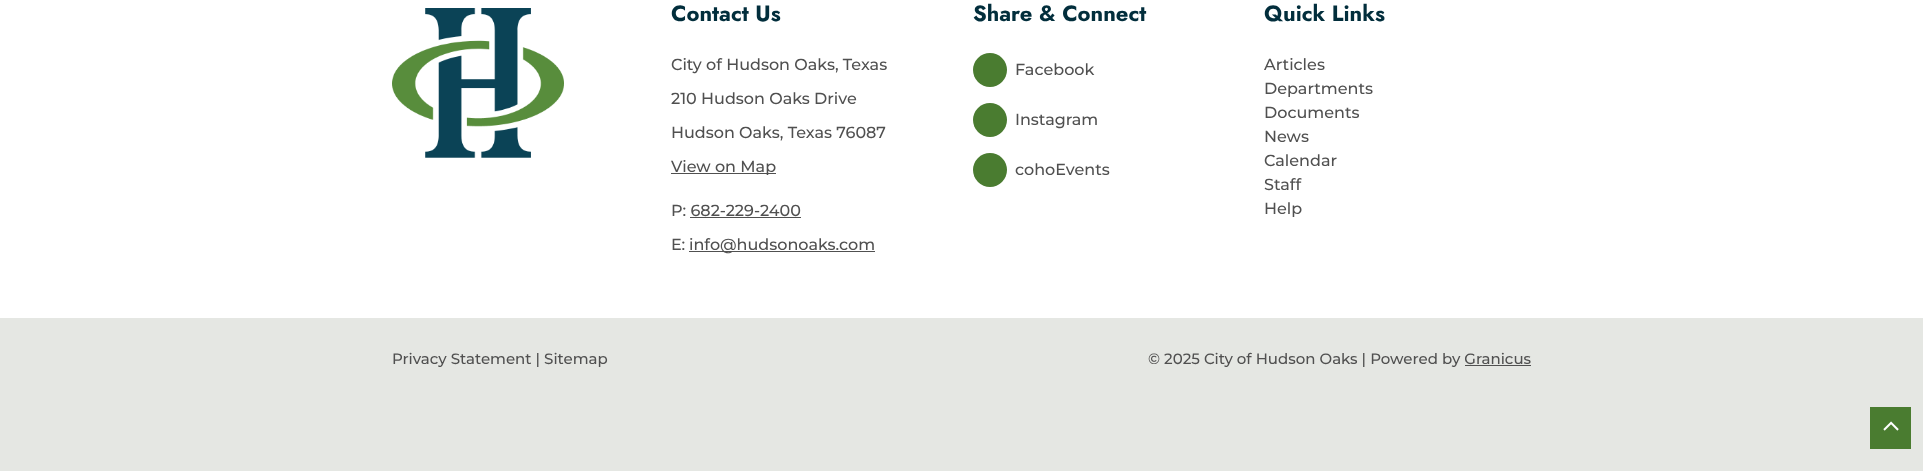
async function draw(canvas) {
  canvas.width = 1923
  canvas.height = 471
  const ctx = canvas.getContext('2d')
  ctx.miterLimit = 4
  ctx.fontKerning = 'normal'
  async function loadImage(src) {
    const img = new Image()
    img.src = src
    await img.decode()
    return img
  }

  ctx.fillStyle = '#fff'
  ctx.fillRect(0, 0, 1923, 471)
  ctx.drawImage(await loadImage('image0.png'), 392, 8, 172, 150)
  ctx.font = 'bold 22px Jost'
  ctx.fillStyle = '#022e3c'
  ctx.fillText('Contact Us', 671, 21)
  ctx.font = '500 16px Montserrat'
  ctx.fillStyle = '#505050'
  ctx.fillText('City of Hudson Oaks, Texas', 671, 70)
  ctx.fillText('210 Hudson Oaks Drive', 671, 104)
  ctx.fillText('Hudson Oaks, Texas 76087', 671, 138)
  ctx.fillRect(671, 173, 105, 1)
  ctx.fillText('View on Map', 671, 172)
  ctx.fillText('P: 682-229-2400', 671, 216)
  ctx.fillRect(690, 217, 111, 1)
  ctx.fillText('E:', 671, 250)
  ctx.fillRect(689, 251, 186, 1)
  ctx.fillText('info@hudsonoaks.com', 689, 250)
  ctx.font = 'bold 22px Jost'
  ctx.fillStyle = '#022e3c'
  ctx.fillText('Share & Connect', 973, 21)
  ctx.fillStyle = '#4a7c30'
  ctx.beginPath()
  ctx.arc(990, 70, 17, 0, 2 * Math.PI)
  ctx.fill()
  ctx.font = '500 16px Montserrat'
  ctx.fillStyle = '#505050'
  ctx.fillText('Facebook', 1015, 75)
  ctx.fillStyle = '#4a7c30'
  ctx.beginPath()
  ctx.arc(990, 120, 17, 0, 2 * Math.PI)
  ctx.fill()
  ctx.fillStyle = '#505050'
  ctx.fillText('Instagram', 1015, 125)
  ctx.fillStyle = '#4a7c30'
  ctx.beginPath()
  ctx.arc(990, 170, 17, 0, 2 * Math.PI)
  ctx.fill()
  ctx.fillStyle = '#505050'
  ctx.fillText('cohoEvents', 1015, 175)
  ctx.font = 'bold 22px Jost'
  ctx.fillStyle = '#022e3c'
  ctx.fillText('Quick Links', 1264, 21)
  ctx.font = '500 16px Montserrat'
  ctx.fillStyle = '#505050'
  ctx.fillText('Articles', 1264, 70)
  ctx.fillText('Departments', 1264, 94)
  ctx.fillText('Documents', 1264, 118)
  ctx.fillText('News', 1264, 142)
  ctx.fillText('Calendar', 1264, 166)
  ctx.fillText('Staff', 1264, 190)
  ctx.fillText('Help', 1264, 214)
  ctx.fillStyle = '#e5e7e3'
  ctx.fillRect(0, 318, 1923, 153)
  ctx.font = '500 15px Montserrat'
  ctx.fillStyle = '#505050'
  ctx.fillText('Privacy Statement | Sitemap', 392, 364)
  ctx.fillText('© 2025 City of Hudson Oaks | Powered by Granicus', 1148, 364)
  ctx.fillRect(1465, 365, 66, 1)
  ctx.fillStyle = '#4a7c30'
  ctx.fillRect(1870, 407, 41, 42)
  ctx.drawImage(await loadImage('image1.png'), 1883, 421, 16, 10)
}

draw(document.querySelector('canvas'))
